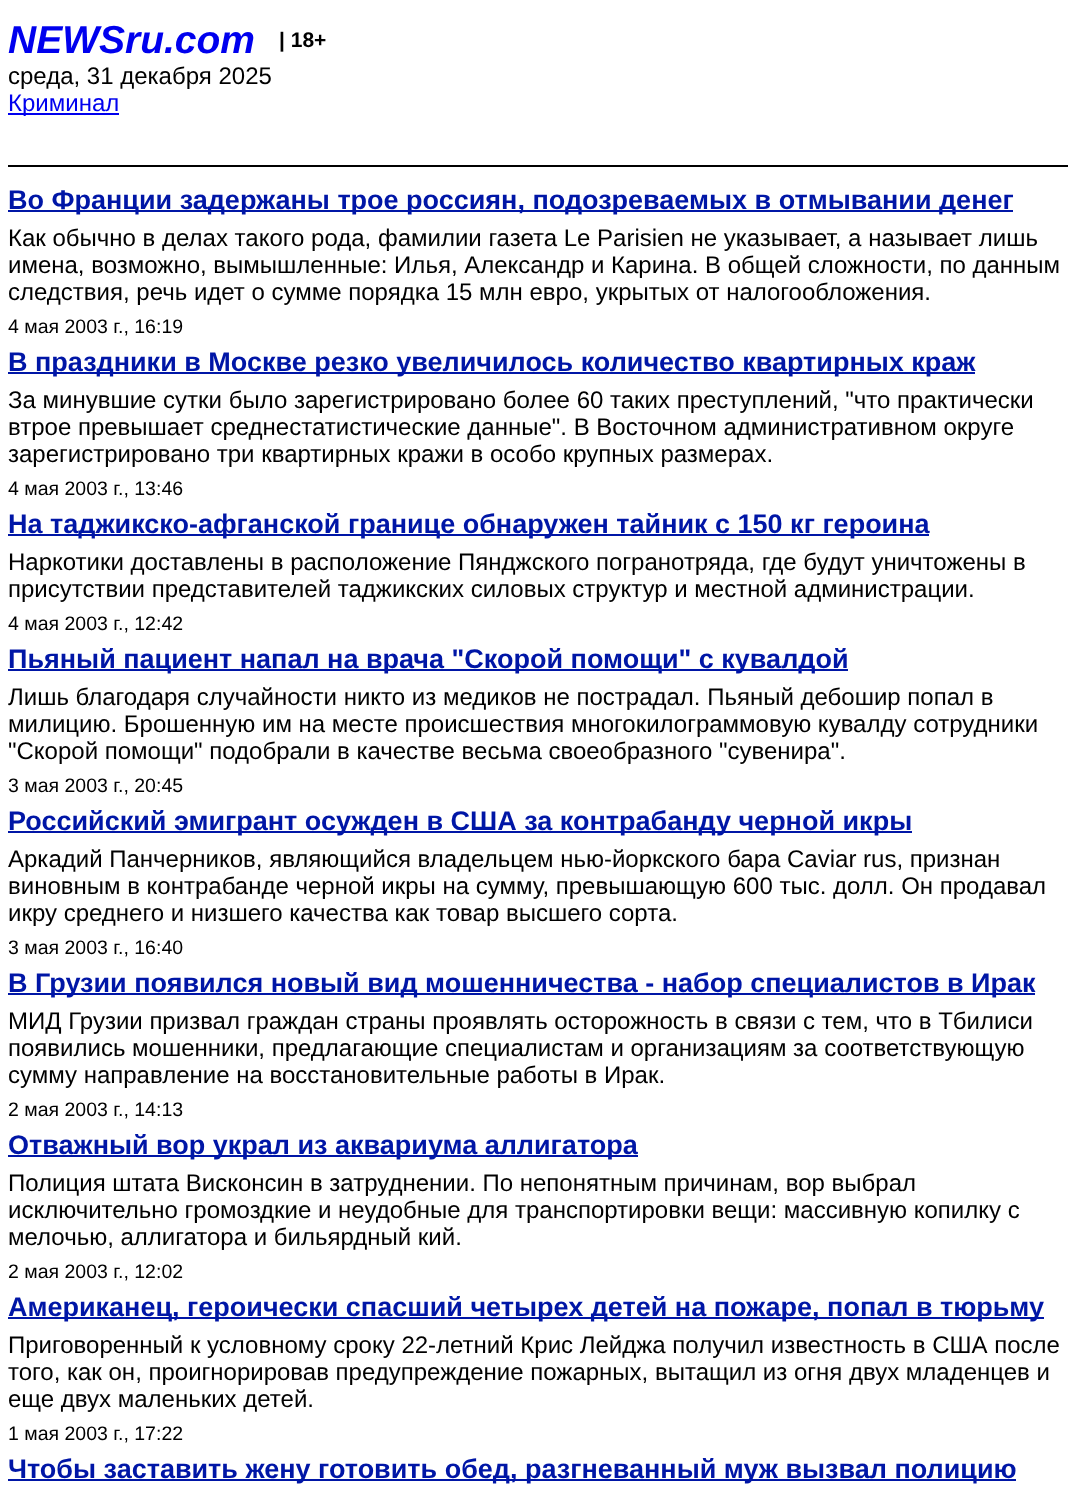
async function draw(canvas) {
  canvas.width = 1075
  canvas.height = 1487
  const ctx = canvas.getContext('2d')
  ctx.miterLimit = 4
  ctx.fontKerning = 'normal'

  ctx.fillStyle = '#fff'
  ctx.fillRect(0, 0, 1075, 1487)
  ctx.fillStyle = '#000'
  ctx.fillRect(8, 165, 1060, 2)
  ctx.font = 'italic bold 39px Liberation Sans'
  ctx.fillStyle = '#00e'
  ctx.fillText('NEWSru.com', 8, 53)
  ctx.font = 'bold 21px Liberation Sans'
  ctx.fillStyle = '#000'
  ctx.fillText('| 18+', 279, 47)
  ctx.font = '24px Liberation Sans'
  ctx.fillText('среда, 31 декабря 2025', 8, 84)
  ctx.fillStyle = '#00e'
  ctx.fillRect(8, 113, 111, 2)
  ctx.fillText('Криминал', 8, 111)
  ctx.fillStyle = '#0016a6'
  ctx.fillRect(8, 210, 1005, 2)
  ctx.font = 'bold 27px Liberation Sans'
  ctx.fillText('Во Франции задержаны трое россиян, подозреваемых в отмывании денег', 8, 209)
  ctx.font = '24px Liberation Sans'
  ctx.fillStyle = '#000'
  ctx.fillText('Как обычно в делах такого рода, фамилии газета Le Parisien не указывает, а называет лишь', 8, 246)
  ctx.fillText('имена, возможно, вымышленные: Илья, Александр и Карина. В общей сложности, по данным', 8, 273)
  ctx.fillText('следствия, речь идет о сумме порядка 15 млн евро, укрытых от налогообложения.', 8, 300)
  ctx.font = '19.5px Liberation Sans'
  ctx.fillText('4 мая 2003 г., 16:19', 8, 333)
  ctx.fillStyle = '#0016a6'
  ctx.fillRect(8, 372, 967, 2)
  ctx.font = 'bold 27px Liberation Sans'
  ctx.fillText('В праздники в Москве резко увеличилось количество квартирных краж', 8, 371)
  ctx.font = '24px Liberation Sans'
  ctx.fillStyle = '#000'
  ctx.fillText('За минувшие сутки было зарегистрировано более 60 таких преступлений, "что практически', 8, 408)
  ctx.fillText('втрое превышает среднестатистические данные". В Восточном административном округе', 8, 435)
  ctx.fillText('зарегистрировано три квартирных кражи в особо крупных размерах.', 8, 462)
  ctx.font = '19.5px Liberation Sans'
  ctx.fillText('4 мая 2003 г., 13:46', 8, 495)
  ctx.fillStyle = '#0016a6'
  ctx.fillRect(8, 534, 921, 2)
  ctx.font = 'bold 27px Liberation Sans'
  ctx.fillText('На таджикско-афганской границе обнаружен тайник с 150 кг героина', 8, 533)
  ctx.font = '24px Liberation Sans'
  ctx.fillStyle = '#000'
  ctx.fillText('Наркотики доставлены в расположение Пянджского погранотряда, где будут уничтожены в', 8, 570)
  ctx.fillText('присутствии представителей таджикских силовых структур и местной администрации.', 8, 597)
  ctx.font = '19.5px Liberation Sans'
  ctx.fillText('4 мая 2003 г., 12:42', 8, 630)
  ctx.fillStyle = '#0016a6'
  ctx.fillRect(8, 669, 840, 2)
  ctx.font = 'bold 27px Liberation Sans'
  ctx.fillText('Пьяный пациент напал на врача "Скорой помощи" с кувалдой', 8, 668)
  ctx.font = '24px Liberation Sans'
  ctx.fillStyle = '#000'
  ctx.fillText('Лишь благодаря случайности никто из медиков не пострадал. Пьяный дебошир попал в', 8, 705)
  ctx.fillText('милицию. Брошенную им на месте происшествия многокилограммовую кувалду сотрудники', 8, 732)
  ctx.fillText('"Cкорой помощи" подобрали в качестве весьма своеобразного "сувенира".', 8, 759)
  ctx.font = '19.5px Liberation Sans'
  ctx.fillText('3 мая 2003 г., 20:45', 8, 792)
  ctx.fillStyle = '#0016a6'
  ctx.fillRect(8, 831, 904, 2)
  ctx.font = 'bold 27px Liberation Sans'
  ctx.fillText('Российский эмигрант осужден в США за контрабанду черной икры', 8, 830)
  ctx.font = '24px Liberation Sans'
  ctx.fillStyle = '#000'
  ctx.fillText('Аркадий Панчерников, являющийся владельцем нью-йоркского бара Caviar rus, признан', 8, 867)
  ctx.fillText('виновным в контрабанде черной икры на сумму, превышающую 600 тыс. долл. Он продавал', 8, 894)
  ctx.fillText('икру среднего и низшего качества как товар высшего сорта.', 8, 921)
  ctx.font = '19.5px Liberation Sans'
  ctx.fillText('3 мая 2003 г., 16:40', 8, 954)
  ctx.fillStyle = '#0016a6'
  ctx.fillRect(8, 993, 1027, 2)
  ctx.font = 'bold 27px Liberation Sans'
  ctx.fillText('В Грузии появился новый вид мошенничества - набор специалистов в Ирак', 8, 992)
  ctx.font = '24px Liberation Sans'
  ctx.fillStyle = '#000'
  ctx.fillText('МИД Грузии призвал граждан страны проявлять осторожность в связи с тем, что в Тбилиси', 8, 1029)
  ctx.fillText('появились мошенники, предлагающие специалистам и организациям за соответствующую', 8, 1056)
  ctx.fillText('сумму направление на восстановительные работы в Ирак.', 8, 1083)
  ctx.font = '19.5px Liberation Sans'
  ctx.fillText('2 мая 2003 г., 14:13', 8, 1116)
  ctx.fillStyle = '#0016a6'
  ctx.fillRect(8, 1155, 630, 2)
  ctx.font = 'bold 27px Liberation Sans'
  ctx.fillText('Отважный вор украл из аквариума аллигатора', 8, 1154)
  ctx.font = '24px Liberation Sans'
  ctx.fillStyle = '#000'
  ctx.fillText('Полиция штата Висконсин в затруднении. По непонятным причинам, вор выбрал', 8, 1191)
  ctx.fillText('исключительно громоздкие и неудобные для транспортировки вещи: массивную копилку с', 8, 1218)
  ctx.fillText('мелочью, аллигатора и бильярдный кий.', 8, 1245)
  ctx.font = '19.5px Liberation Sans'
  ctx.fillText('2 мая 2003 г., 12:02', 8, 1278)
  ctx.fillStyle = '#0016a6'
  ctx.fillRect(8, 1317, 1036, 2)
  ctx.font = 'bold 27px Liberation Sans'
  ctx.fillText('Американец, героически спасший четырех детей на пожаре, попал в тюрьму', 8, 1316)
  ctx.font = '24px Liberation Sans'
  ctx.fillStyle = '#000'
  ctx.fillText('Приговоренный к условному сроку 22-летний Крис Лейджа получил известность в США после', 8, 1353)
  ctx.fillText('того, как он, проигнорировав предупреждение пожарных, вытащил из огня двух младенцев и', 8, 1380)
  ctx.fillText('еще двух маленьких детей.', 8, 1407)
  ctx.font = '19.5px Liberation Sans'
  ctx.fillText('1 мая 2003 г., 17:22', 8, 1440)
  ctx.fillStyle = '#0016a6'
  ctx.fillRect(8, 1479, 1008, 2)
  ctx.font = 'bold 27px Liberation Sans'
  ctx.fillText('Чтобы заставить жену готовить обед, разгневанный муж вызвал полицию', 8, 1478)
}

draw(document.querySelector('canvas'))
